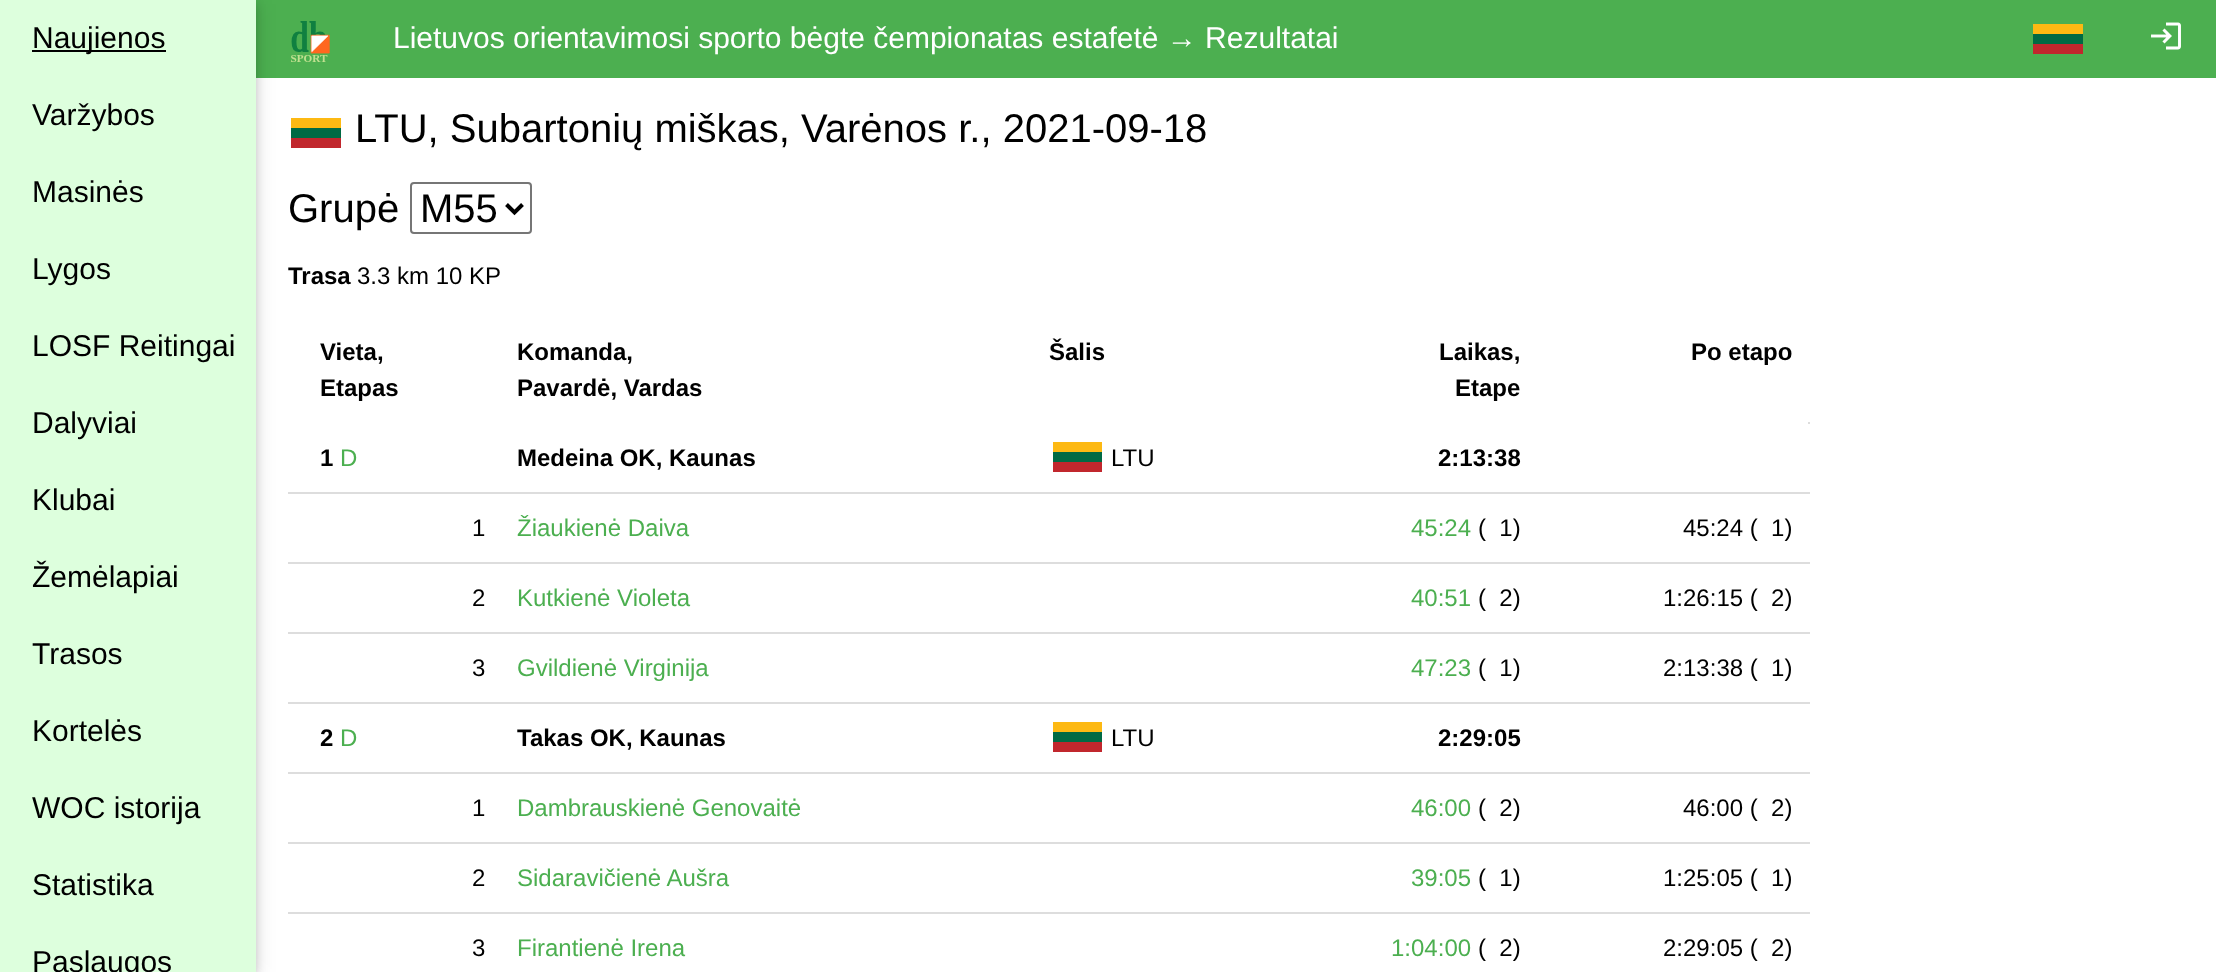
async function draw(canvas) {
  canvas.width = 2216
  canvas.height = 972
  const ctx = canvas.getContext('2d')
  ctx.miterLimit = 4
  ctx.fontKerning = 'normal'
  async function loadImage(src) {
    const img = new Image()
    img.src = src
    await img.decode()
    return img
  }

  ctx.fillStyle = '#fff'
  ctx.fillRect(0, 0, 2216, 972)
  ctx.fillStyle = '#4caf50'
  ctx.fillRect(256, 0, 1960, 78)
  ctx.fillStyle = '#0000001f'
  ctx.filter = 'blur(10px)'
  ctx.beginPath()
  ctx.rect(0, 4, 256, 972)
  ctx.fill()
  ctx.filter = 'none'
  ctx.fillStyle = '#00000029'
  ctx.filter = 'blur(5px)'
  ctx.beginPath()
  ctx.rect(0, 4, 256, 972)
  ctx.fill()
  ctx.filter = 'none'
  ctx.fillStyle = '#dfd'
  ctx.fillRect(0, 0, 256, 972)
  ctx.fillStyle = '#000'
  ctx.fillRect(32, 50, 134, 2)
  ctx.font = '30px Liberation Sans'
  ctx.fillText('Naujienos', 32, 48)
  ctx.fillText('Varžybos', 32, 125)
  ctx.fillText('Masinės', 32, 202)
  ctx.fillText('Lygos', 32, 279)
  ctx.fillText('LOSF Reitingai', 32, 356)
  ctx.fillText('Dalyviai', 32, 433)
  ctx.fillText('Klubai', 32, 510)
  ctx.fillText('Žemėlapiai', 32, 587)
  ctx.fillText('Trasos', 32, 664)
  ctx.fillText('Kortelės', 32, 741)
  ctx.fillText('WOC istorija', 32, 818)
  ctx.fillText('Statistika', 32, 895)
  ctx.fillText('Paslaugos', 32, 972)
  ctx.drawImage(await loadImage('image0.png'), 291, 21, 39, 41)
  ctx.fillStyle = '#fff'
  ctx.fillText('Lietuvos orientavimosi sporto bėgte čempionatas estafetė → Rezultatai', 393, 48)
  ctx.fillStyle = '#fdb913'
  ctx.fillRect(2033, 24, 50, 10)
  ctx.fillStyle = '#006a44'
  ctx.fillRect(2033, 34, 50, 10)
  ctx.fillStyle = '#c1272d'
  ctx.fillRect(2033, 44, 50, 10)
  ctx.drawImage(await loadImage('image1.png'), 2151, 22, 30, 28)
  ctx.fillStyle = '#fdb913'
  ctx.fillRect(291, 118, 50, 10)
  ctx.fillStyle = '#006a44'
  ctx.fillRect(291, 128, 50, 10)
  ctx.fillStyle = '#c1272d'
  ctx.fillRect(291, 138, 50, 10)
  ctx.font = '40px Liberation Sans'
  ctx.fillStyle = '#000'
  ctx.fillText('LTU, Subartonių miškas, Varėnos r., 2021-09-18', 355, 142)
  ctx.fillText('Grupė', 288, 222)
  ctx.beginPath()
  ctx.roundRect(411, 183, 120, 50, 3)
  ctx.strokeStyle = '#767676'
  ctx.lineWidth = 2
  ctx.stroke()
  ctx.beginPath()
  ctx.moveTo(506.5, 204.5)
  ctx.lineTo(514.5, 212.5)
  ctx.lineTo(522.5, 204.5)
  ctx.strokeStyle = '#000'
  ctx.lineWidth = 4
  ctx.stroke()
  ctx.fillText('M55', 420, 222)
  ctx.font = 'bold 24px Liberation Sans'
  ctx.fillText('Trasa', 288, 284)
  ctx.font = '24px Liberation Sans'
  ctx.fillText('3.3 km 10 KP', 357, 284)
  ctx.fillStyle = '#ddd'
  ctx.fillRect(1808, 422, 2, 2)
  ctx.font = 'bold 24px Liberation Sans'
  ctx.fillStyle = '#000'
  ctx.fillText('Vieta,', 320, 360)
  ctx.fillText('Etapas', 320, 396)
  ctx.fillText('Komanda,', 517, 360)
  ctx.fillText('Pavardė, Vardas', 517, 396)
  ctx.fillText('Šalis', 1049, 360)
  ctx.fillText('Laikas,', 1439, 360)
  ctx.fillText('Etape', 1455, 396)
  ctx.fillText('Po etapo', 1691, 360)
  ctx.fillStyle = '#ddd'
  ctx.fillRect(288, 492, 1522, 2)
  ctx.fillStyle = '#000'
  ctx.fillText('1', 320, 466)
  ctx.font = '24px Liberation Sans'
  ctx.fillStyle = '#4caf50'
  ctx.fillText('D', 340, 466)
  ctx.font = 'bold 24px Liberation Sans'
  ctx.fillStyle = '#000'
  ctx.fillText('Medeina OK, Kaunas', 517, 466)
  ctx.fillStyle = '#fdb913'
  ctx.fillRect(1053, 442, 49, 10)
  ctx.fillStyle = '#006a44'
  ctx.fillRect(1053, 452, 49, 10)
  ctx.fillStyle = '#c1272d'
  ctx.fillRect(1053, 462, 49, 10)
  ctx.font = '24px Liberation Sans'
  ctx.fillStyle = '#000'
  ctx.fillText('LTU', 1111, 466)
  ctx.font = 'bold 24px Liberation Sans'
  ctx.fillText('2:13:38', 1438, 466)
  ctx.fillStyle = '#ddd'
  ctx.fillRect(288, 562, 1522, 2)
  ctx.font = '24px Liberation Sans'
  ctx.fillStyle = '#000'
  ctx.fillText('1', 472, 536)
  ctx.fillStyle = '#4caf50'
  ctx.fillText('Žiaukienė Daiva', 517, 536)
  ctx.fillText('45:24', 1411, 536)
  ctx.fillStyle = '#000'
  ctx.fillText('(  1)', 1478, 536)
  ctx.fillText('45:24 (  1)', 1683, 536)
  ctx.fillStyle = '#ddd'
  ctx.fillRect(288, 632, 1522, 2)
  ctx.fillStyle = '#000'
  ctx.fillText('2', 472, 606)
  ctx.fillStyle = '#4caf50'
  ctx.fillText('Kutkienė Violeta', 517, 606)
  ctx.fillText('40:51', 1411, 606)
  ctx.fillStyle = '#000'
  ctx.fillText('(  2)', 1478, 606)
  ctx.fillText('1:26:15 (  2)', 1663, 606)
  ctx.fillStyle = '#ddd'
  ctx.fillRect(288, 702, 1522, 2)
  ctx.fillStyle = '#000'
  ctx.fillText('3', 472, 676)
  ctx.fillStyle = '#4caf50'
  ctx.fillText('Gvildienė Virginija', 517, 676)
  ctx.fillText('47:23', 1411, 676)
  ctx.fillStyle = '#000'
  ctx.fillText('(  1)', 1478, 676)
  ctx.fillText('2:13:38 (  1)', 1663, 676)
  ctx.fillStyle = '#ddd'
  ctx.fillRect(288, 772, 1522, 2)
  ctx.font = 'bold 24px Liberation Sans'
  ctx.fillStyle = '#000'
  ctx.fillText('2', 320, 746)
  ctx.font = '24px Liberation Sans'
  ctx.fillStyle = '#4caf50'
  ctx.fillText('D', 340, 746)
  ctx.font = 'bold 24px Liberation Sans'
  ctx.fillStyle = '#000'
  ctx.fillText('Takas OK, Kaunas', 517, 746)
  ctx.fillStyle = '#fdb913'
  ctx.fillRect(1053, 722, 49, 10)
  ctx.fillStyle = '#006a44'
  ctx.fillRect(1053, 732, 49, 10)
  ctx.fillStyle = '#c1272d'
  ctx.fillRect(1053, 742, 49, 10)
  ctx.font = '24px Liberation Sans'
  ctx.fillStyle = '#000'
  ctx.fillText('LTU', 1111, 746)
  ctx.font = 'bold 24px Liberation Sans'
  ctx.fillText('2:29:05', 1438, 746)
  ctx.fillStyle = '#ddd'
  ctx.fillRect(288, 842, 1522, 2)
  ctx.font = '24px Liberation Sans'
  ctx.fillStyle = '#000'
  ctx.fillText('1', 472, 816)
  ctx.fillStyle = '#4caf50'
  ctx.fillText('Dambrauskienė Genovaitė', 517, 816)
  ctx.fillText('46:00', 1411, 816)
  ctx.fillStyle = '#000'
  ctx.fillText('(  2)', 1478, 816)
  ctx.fillText('46:00 (  2)', 1683, 816)
  ctx.fillStyle = '#ddd'
  ctx.fillRect(288, 912, 1522, 2)
  ctx.fillStyle = '#000'
  ctx.fillText('2', 472, 886)
  ctx.fillStyle = '#4caf50'
  ctx.fillText('Sidaravičienė Aušra', 517, 886)
  ctx.fillText('39:05', 1411, 886)
  ctx.fillStyle = '#000'
  ctx.fillText('(  1)', 1478, 886)
  ctx.fillText('1:25:05 (  1)', 1663, 886)
  ctx.fillText('3', 472, 956)
  ctx.fillStyle = '#4caf50'
  ctx.fillText('Firantienė Irena', 517, 956)
  ctx.fillText('1:04:00', 1391, 956)
  ctx.fillStyle = '#000'
  ctx.fillText('(  2)', 1478, 956)
  ctx.fillText('2:29:05 (  2)', 1663, 956)
}

draw(document.querySelector('canvas'))
